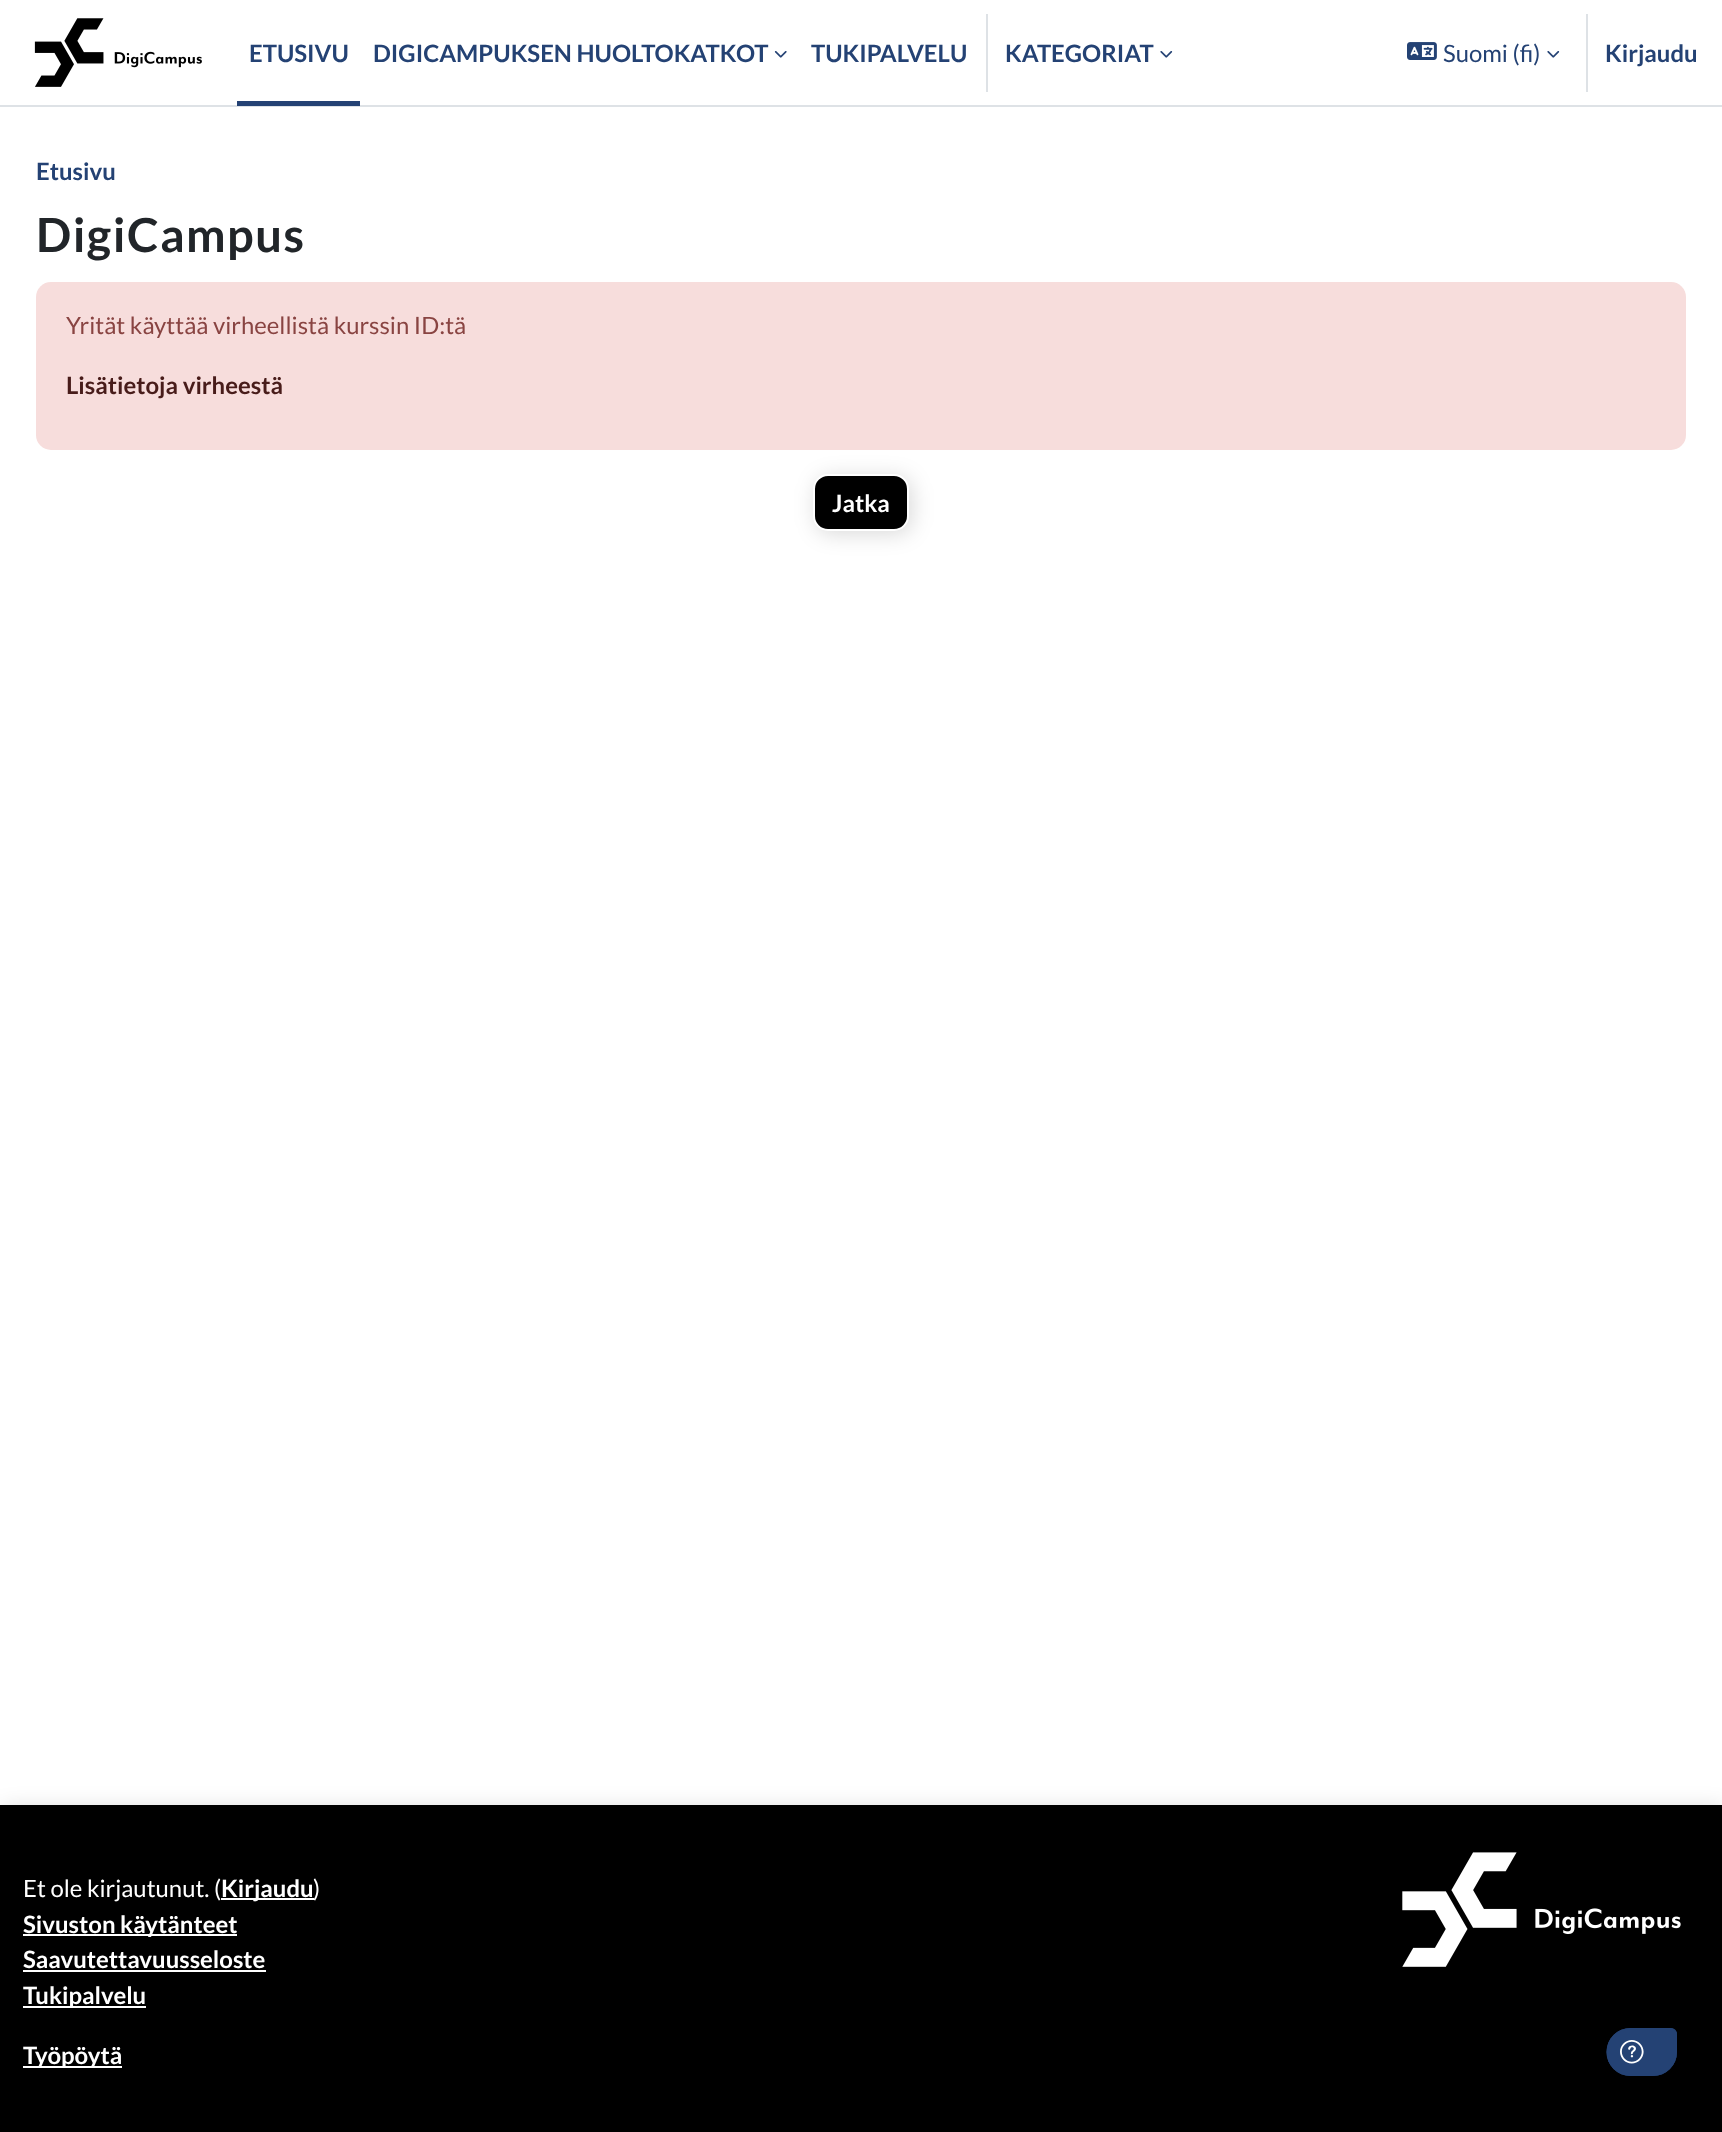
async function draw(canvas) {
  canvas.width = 1722
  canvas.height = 2132
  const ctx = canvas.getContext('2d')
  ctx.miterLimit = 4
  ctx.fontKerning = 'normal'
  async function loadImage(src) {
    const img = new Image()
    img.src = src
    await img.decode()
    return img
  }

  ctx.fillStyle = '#fff'
  ctx.fillRect(0, 0, 1722, 2132)
  ctx.fillStyle = '#dee2e6'
  ctx.fillRect(0, 105, 1722, 2)
  ctx.drawImage(await loadImage('image0.png'), 34, 18, 168, 69)
  ctx.fillStyle = '#244274'
  ctx.fillRect(237, 101, 123, 5)
  ctx.font = 'bold 23.9px Lato'
  ctx.fillText('ETUSIVU', 249, 62)
  ctx.fillText('DIGICAMPUKSEN HUOLTOKATKOT', 373, 62)
  ctx.drawImage(await loadImage('image1.png'), 774, 51, 13, 7)
  ctx.fillText('TUKIPALVELU', 811, 62)
  ctx.fillStyle = '#dee2e6'
  ctx.fillRect(986, 14, 2, 78)
  ctx.fillStyle = '#244274'
  ctx.fillText('KATEGORIAT', 1005, 62)
  ctx.drawImage(await loadImage('image2.png'), 1160, 51, 13, 7)
  ctx.drawImage(await loadImage('image3.png'), 1407, 42, 30, 18)
  ctx.font = '23.9px Lato'
  ctx.fillText('Suomi (fi)', 1443, 62)
  ctx.drawImage(await loadImage('image2.png'), 1547, 51, 13, 7)
  ctx.fillStyle = '#dee2e6'
  ctx.fillRect(1586, 14, 2, 78)
  ctx.font = 'bold 23.9px Lato'
  ctx.fillStyle = '#244274'
  ctx.fillText('Kirjaudu', 1605, 62)
  ctx.fillText('Etusivu', 36, 180)
  ctx.letterSpacing = '1.5px'
  ctx.font = 'bold 47px Lato'
  ctx.fillStyle = '#212529'
  ctx.fillText('DigiCampus', 36, 252)
  ctx.fillStyle = '#f7dddc'
  ctx.beginPath()
  ctx.roundRect(36, 282, 1650, 168, 15)
  ctx.fill()
  ctx.letterSpacing = '0px'
  ctx.font = '23.9px Lato'
  ctx.fillStyle = '#894442'
  ctx.fillText('Yrität käyttää virheellistä kurssin ID:tä', 66, 334)
  ctx.font = 'bold 23.9px Lato'
  ctx.fillStyle = '#481c1a'
  ctx.fillText('Lisätietoja virheestä', 66, 394)
  ctx.fillStyle = '#00000026'
  ctx.filter = 'blur(10.5px)'
  ctx.beginPath()
  ctx.roundRect(816, 477, 96, 57, 15)
  ctx.fill()
  ctx.filter = 'none'
  ctx.fillStyle = '#000'
  ctx.beginPath()
  ctx.roundRect(814, 475, 94, 55, 14)
  ctx.fill()
  ctx.strokeStyle = '#fff'
  ctx.lineWidth = 2
  ctx.stroke()
  ctx.fillStyle = '#fff'
  ctx.fillText('Jatka', 832, 512)
  ctx.fillStyle = '#00000026'
  ctx.filter = 'blur(10.5px)'
  ctx.beginPath()
  ctx.rect(3, 1808, 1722, 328)
  ctx.fill()
  ctx.filter = 'none'
  ctx.fillStyle = '#000'
  ctx.fillRect(0, 1805, 1722, 327)
  ctx.font = '23.9px Lato'
  ctx.fillStyle = '#fff'
  ctx.fillText('Et ole kirjautunut. (', 23, 1897)
  ctx.fillRect(221, 1898, 93, 2)
  ctx.font = 'bold 23.9px Lato'
  ctx.fillText('Kirjaudu', 221, 1897)
  ctx.font = '23.9px Lato'
  ctx.fillText(')', 313, 1897)
  ctx.fillRect(23, 1934, 214, 2)
  ctx.font = 'bold 23.9px Lato'
  ctx.fillText('Sivuston käytänteet', 23, 1933)
  ctx.fillText('Saavutettavuusseloste', 23, 1968)
  ctx.fillRect(23, 1970, 243, 2)
  ctx.fillRect(23, 2006, 123, 2)
  ctx.fillText('Tukipalvelu', 23, 2004)
  ctx.fillRect(23, 2066, 99, 2)
  ctx.fillText('Työpöytä', 23, 2064)
  ctx.drawImage(await loadImage('image4.png'), 1402, 1852, 279, 115)
  ctx.drawImage(await loadImage('image5.png'), 1606, 2028, 71, 48)
  ctx.drawImage(await loadImage('image6.png'), 1606, 2028, 71, 48)
}

draw(document.querySelector('canvas'))
